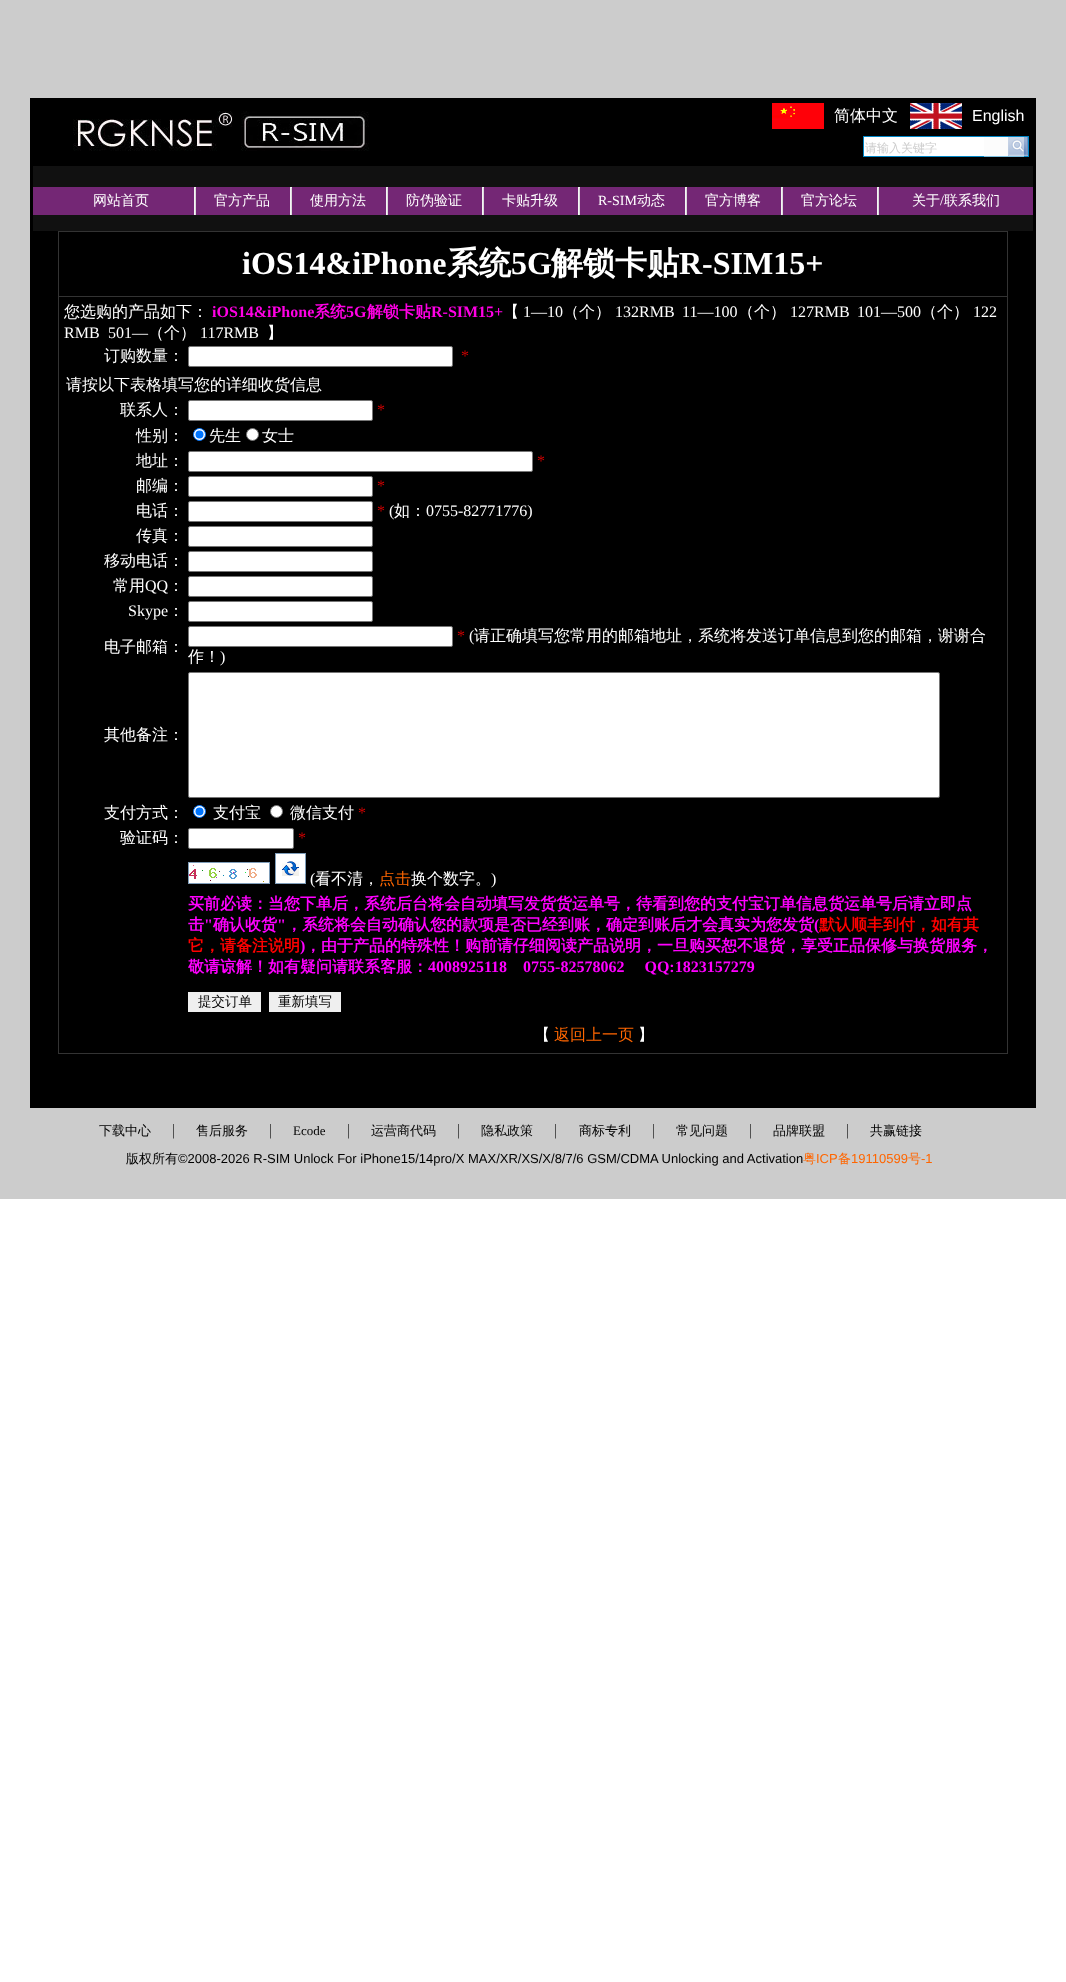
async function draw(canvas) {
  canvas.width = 1066
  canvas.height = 1982
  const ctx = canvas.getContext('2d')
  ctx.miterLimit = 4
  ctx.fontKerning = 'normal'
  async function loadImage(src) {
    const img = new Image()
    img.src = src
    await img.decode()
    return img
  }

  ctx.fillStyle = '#fff'
  ctx.fillRect(0, 0, 1066, 1982)
  ctx.fillStyle = '#ccc'
  ctx.fillRect(0, 0, 1066, 1199)
  ctx.fillStyle = '#000'
  ctx.fillRect(30, 98, 1006, 1010)
  ctx.drawImage(await loadImage('image0.png'), 73, 111, 296, 40)
  ctx.drawImage(await loadImage('image1.png'), 772, 103, 52, 26)
  ctx.font = '500 16px WenQuanYi Zen Hei'
  ctx.fillStyle = '#fff'
  ctx.fillText('简体中文', 834, 121)
  ctx.drawImage(await loadImage('image2.png'), 910, 103, 52, 26)
  ctx.font = '16px Liberation Sans'
  ctx.fillText('English', 972, 121)
  ctx.fillRect(864, 137, 144, 19)
  ctx.drawImage(await loadImage('image3.png'), 1008, 137, 20, 19)
  ctx.strokeStyle = '#0086c6'
  ctx.strokeRect(863.5, 136.5, 165, 20)
  ctx.font = '500 12px WenQuanYi Zen Hei'
  ctx.fillStyle = '#ccc'
  ctx.fillText('请输入关键字', 865, 152)
  ctx.fillStyle = '#fafafa80'
  ctx.fillRect(984, 137, 40, 20)
  ctx.fillStyle = '#111'
  ctx.fillRect(33, 166, 1000, 65)
  ctx.fillStyle = '#742775'
  ctx.fillRect(33, 187, 1000, 28)
  ctx.font = '500 14px WenQuanYi Zen Hei'
  ctx.fillStyle = '#fff'
  ctx.fillText('网站首页', 93, 205)
  ctx.drawImage(await loadImage('image4.png'), 194, 187, 2, 28)
  ctx.fillText('官方产品', 214, 205)
  ctx.drawImage(await loadImage('image4.png'), 290, 187, 2, 28)
  ctx.fillText('使用方法', 310, 205)
  ctx.drawImage(await loadImage('image4.png'), 386, 187, 2, 28)
  ctx.fillText('防伪验证', 406, 205)
  ctx.drawImage(await loadImage('image4.png'), 482, 187, 2, 28)
  ctx.fillText('卡贴升级', 502, 205)
  ctx.drawImage(await loadImage('image4.png'), 578, 187, 2, 28)
  ctx.font = '14px Liberation Serif'
  ctx.fillText('R-SIM', 598, 205)
  ctx.font = '500 14px WenQuanYi Zen Hei'
  ctx.fillText('动态', 637, 205)
  ctx.drawImage(await loadImage('image4.png'), 685, 187, 2, 28)
  ctx.fillText('官方博客', 705, 205)
  ctx.drawImage(await loadImage('image4.png'), 781, 187, 2, 28)
  ctx.fillText('官方论坛', 801, 205)
  ctx.drawImage(await loadImage('image4.png'), 877, 187, 2, 28)
  ctx.fillText('关于', 912, 205)
  ctx.font = '14px Liberation Serif'
  ctx.fillText('/', 940, 205)
  ctx.font = '500 14px WenQuanYi Zen Hei'
  ctx.fillText('联系我们', 944, 205)
  ctx.fillStyle = '#333'
  ctx.fillRect(58, 231, 950, 823)
  ctx.fillStyle = '#000'
  ctx.fillRect(59, 232, 948, 64)
  ctx.font = 'bold 32px Liberation Serif'
  ctx.fillStyle = '#fff'
  ctx.fillText('iOS14&iPhone', 242, 274)
  ctx.font = 'bold 32px WenQuanYi Zen Hei'
  ctx.fillText('系统', 447, 274)
  ctx.font = 'bold 32px Liberation Serif'
  ctx.fillText('5G', 511, 274)
  ctx.font = 'bold 32px WenQuanYi Zen Hei'
  ctx.fillText('解锁卡贴', 551, 274)
  ctx.font = 'bold 32px Liberation Serif'
  ctx.fillText('R-SIM15+', 679, 274)
  ctx.fillStyle = '#000'
  ctx.fillRect(59, 297, 948, 756)
  ctx.font = '500 16px WenQuanYi Zen Hei'
  ctx.fillStyle = '#fff'
  ctx.fillText('您选购的产品如下：', 64, 317)
  ctx.font = 'bold 16px Liberation Serif'
  ctx.fillStyle = '#ff00e4'
  ctx.fillText('iOS14&iPhone', 212, 317)
  ctx.font = 'bold 16px WenQuanYi Zen Hei'
  ctx.fillText('系统', 314, 317)
  ctx.font = 'bold 16px Liberation Serif'
  ctx.fillText('5G', 346, 317)
  ctx.font = 'bold 16px WenQuanYi Zen Hei'
  ctx.fillText('解锁卡贴', 367, 317)
  ctx.font = 'bold 16px Liberation Serif'
  ctx.fillText('R-SIM15+', 431, 317)
  ctx.font = '500 16px WenQuanYi Zen Hei'
  ctx.fillStyle = '#fff'
  ctx.fillText('【', 503, 317)
  ctx.font = '16px Liberation Serif'
  ctx.fillText('1—10', 523, 317)
  ctx.font = '500 16px WenQuanYi Zen Hei'
  ctx.fillText('（个）', 563, 317)
  ctx.font = '16px Liberation Serif'
  ctx.fillText('132RMB', 615, 317)
  ctx.fillText('11—100', 682, 317)
  ctx.font = '500 16px WenQuanYi Zen Hei'
  ctx.fillText('（个）', 738, 317)
  ctx.font = '16px Liberation Serif'
  ctx.fillText('127RMB', 790, 317)
  ctx.fillText('101—500', 857, 317)
  ctx.font = '500 16px WenQuanYi Zen Hei'
  ctx.fillText('（个）', 921, 317)
  ctx.font = '16px Liberation Serif'
  ctx.fillText('122', 973, 317)
  ctx.fillText('RMB', 64, 338)
  ctx.fillText('501—', 108, 338)
  ctx.font = '500 16px WenQuanYi Zen Hei'
  ctx.fillText('（个）', 148, 338)
  ctx.font = '16px Liberation Serif'
  ctx.fillText('117RMB', 200, 338)
  ctx.font = '500 16px WenQuanYi Zen Hei'
  ctx.fillText('】', 267, 338)
  ctx.fillText('订购数量：', 104, 361)
  ctx.beginPath()
  ctx.roundRect(188.5, 346.5, 264, 20, 1.5)
  ctx.fill()
  ctx.strokeStyle = '#767676'
  ctx.stroke()
  ctx.font = '16px Liberation Serif'
  ctx.fillStyle = '#c00'
  ctx.fillText('*', 461, 361)
  ctx.font = '500 16px WenQuanYi Zen Hei'
  ctx.fillStyle = '#fff'
  ctx.fillText('请按以下表格填写您的详细收货信息', 66, 390)
  ctx.fillText('联系人：', 120, 415)
  ctx.beginPath()
  ctx.roundRect(188.5, 400.5, 184, 20, 1.5)
  ctx.fill()
  ctx.stroke()
  ctx.font = '16px Liberation Serif'
  ctx.fillStyle = '#c00'
  ctx.fillText('*', 377, 415)
  ctx.font = '500 16px WenQuanYi Zen Hei'
  ctx.fillStyle = '#fff'
  ctx.fillText('性别：', 136, 441)
  ctx.beginPath()
  ctx.arc(199.5, 434.5, 6, 0, 2 * Math.PI)
  ctx.fill()
  ctx.strokeStyle = '#0075ff'
  ctx.stroke()
  ctx.fillStyle = '#0075ff'
  ctx.beginPath()
  ctx.arc(199.5, 434.5, 4, 0, 2 * Math.PI)
  ctx.fill()
  ctx.fillStyle = '#fff'
  ctx.fillText('先生', 209, 441)
  ctx.beginPath()
  ctx.arc(252.5, 434.5, 6, 0, 2 * Math.PI)
  ctx.fill()
  ctx.strokeStyle = '#767676'
  ctx.stroke()
  ctx.fillText('女士', 262, 441)
  ctx.fillText('地址：', 136, 466)
  ctx.beginPath()
  ctx.roundRect(188.5, 451.5, 344, 20, 1.5)
  ctx.fill()
  ctx.stroke()
  ctx.font = '16px Liberation Serif'
  ctx.fillStyle = '#c00'
  ctx.fillText('*', 537, 466)
  ctx.font = '500 16px WenQuanYi Zen Hei'
  ctx.fillStyle = '#fff'
  ctx.fillText('邮编：', 136, 491)
  ctx.beginPath()
  ctx.roundRect(188.5, 476.5, 184, 20, 1.5)
  ctx.fill()
  ctx.stroke()
  ctx.font = '16px Liberation Serif'
  ctx.fillStyle = '#c00'
  ctx.fillText('*', 377, 491)
  ctx.font = '500 16px WenQuanYi Zen Hei'
  ctx.fillStyle = '#fff'
  ctx.fillText('电话：', 136, 516)
  ctx.beginPath()
  ctx.roundRect(188.5, 501.5, 184, 20, 1.5)
  ctx.fill()
  ctx.stroke()
  ctx.font = '16px Liberation Serif'
  ctx.fillStyle = '#c00'
  ctx.fillText('*', 377, 516)
  ctx.fillStyle = '#fff'
  ctx.fillText('(', 389, 516)
  ctx.font = '500 16px WenQuanYi Zen Hei'
  ctx.fillText('如：', 394, 516)
  ctx.font = '16px Liberation Serif'
  ctx.fillText('0755-82771776)', 426, 516)
  ctx.font = '500 16px WenQuanYi Zen Hei'
  ctx.fillText('传真：', 136, 541)
  ctx.beginPath()
  ctx.roundRect(188.5, 526.5, 184, 20, 1.5)
  ctx.fill()
  ctx.stroke()
  ctx.fillText('移动电话：', 104, 566)
  ctx.beginPath()
  ctx.roundRect(188.5, 551.5, 184, 20, 1.5)
  ctx.fill()
  ctx.stroke()
  ctx.fillText('常用', 113, 591)
  ctx.font = '16px Liberation Serif'
  ctx.fillText('QQ', 145, 591)
  ctx.font = '500 16px WenQuanYi Zen Hei'
  ctx.fillText('：', 168, 591)
  ctx.beginPath()
  ctx.roundRect(188.5, 576.5, 184, 20, 1.5)
  ctx.fill()
  ctx.stroke()
  ctx.font = '16px Liberation Serif'
  ctx.fillText('Skype', 128, 616)
  ctx.font = '500 16px WenQuanYi Zen Hei'
  ctx.fillText('：', 168, 616)
  ctx.beginPath()
  ctx.roundRect(188.5, 601.5, 184, 20, 1.5)
  ctx.fill()
  ctx.stroke()
  ctx.fillText('电子邮箱：', 104, 652)
  ctx.beginPath()
  ctx.roundRect(188.5, 626.5, 264, 20, 1.5)
  ctx.fill()
  ctx.stroke()
  ctx.font = '16px Liberation Serif'
  ctx.fillStyle = '#c00'
  ctx.fillText('*', 457, 641)
  ctx.fillStyle = '#fff'
  ctx.fillText('(', 469, 641)
  ctx.font = '500 16px WenQuanYi Zen Hei'
  ctx.fillText('请正确填写您常用的邮箱地址，系统将发送订单信息到您的邮箱，谢谢合', 474, 641)
  ctx.fillText('作！', 188, 662)
  ctx.font = '16px Liberation Serif'
  ctx.fillText(')', 220, 662)
  ctx.font = '500 16px WenQuanYi Zen Hei'
  ctx.fillText('其他备注：', 104, 740)
  ctx.beginPath()
  ctx.roundRect(188.5, 672.5, 751, 125, 1.5)
  ctx.fill()
  ctx.stroke()
  ctx.fillText('支付方式：', 104, 818)
  ctx.beginPath()
  ctx.arc(199.5, 811.5, 6, 0, 2 * Math.PI)
  ctx.fill()
  ctx.strokeStyle = '#0075ff'
  ctx.stroke()
  ctx.fillStyle = '#0075ff'
  ctx.beginPath()
  ctx.arc(199.5, 811.5, 4, 0, 2 * Math.PI)
  ctx.fill()
  ctx.fillStyle = '#fff'
  ctx.fillText('支付宝', 213, 818)
  ctx.beginPath()
  ctx.arc(276.5, 811.5, 6, 0, 2 * Math.PI)
  ctx.fill()
  ctx.strokeStyle = '#767676'
  ctx.stroke()
  ctx.fillText('微信支付', 290, 818)
  ctx.font = '16px Liberation Serif'
  ctx.fillStyle = '#c00'
  ctx.fillText('*', 358, 818)
  ctx.font = '500 16px WenQuanYi Zen Hei'
  ctx.fillStyle = '#fff'
  ctx.fillText('验证码：', 120, 843)
  ctx.beginPath()
  ctx.roundRect(188.5, 828.5, 105, 20, 1.5)
  ctx.fill()
  ctx.stroke()
  ctx.font = '16px Liberation Serif'
  ctx.fillStyle = '#c00'
  ctx.fillText('*', 298, 843)
  ctx.strokeStyle = '#7f9db9'
  ctx.strokeRect(275.5, 853.5, 30, 30)
  ctx.strokeRect(188.5, 862.5, 81, 21)
  ctx.drawImage(await loadImage('image5.png'), 276, 854, 29, 29)
  ctx.drawImage(await loadImage('image6.png'), 189, 863, 80, 20)
  ctx.fillStyle = '#fff'
  ctx.fillText('(', 310, 884)
  ctx.font = '500 16px WenQuanYi Zen Hei'
  ctx.fillText('看不清，', 315, 884)
  ctx.fillStyle = '#f60'
  ctx.fillText('点击', 379, 884)
  ctx.fillStyle = '#fff'
  ctx.fillText('换个数字。', 411, 884)
  ctx.font = '16px Liberation Serif'
  ctx.fillText(')', 491, 884)
  ctx.font = 'bold 16px WenQuanYi Zen Hei'
  ctx.fillStyle = '#f0f'
  ctx.fillText('买前必读：当您下单后，系统后台将会自动填写发货货运单号，待看到您的支付宝订单信息货运单号后请立即点', 188, 909)
  ctx.fillText('击', 188, 930)
  ctx.font = 'bold 16px Liberation Serif'
  ctx.fillText('"', 204, 930)
  ctx.font = 'bold 16px WenQuanYi Zen Hei'
  ctx.fillText('确认收货', 213, 930)
  ctx.font = 'bold 16px Liberation Serif'
  ctx.fillText('"', 277, 930)
  ctx.font = 'bold 16px WenQuanYi Zen Hei'
  ctx.fillText('，系统将会自动确认您的款项是否已经到账，确定到账后才会真实为您发货', 286, 930)
  ctx.font = 'bold 16px Liberation Serif'
  ctx.fillText('(', 814, 930)
  ctx.font = 'bold 16px WenQuanYi Zen Hei'
  ctx.fillStyle = '#f00'
  ctx.fillText('默认顺丰到付，如有其', 819, 930)
  ctx.fillText('它，请备注说明', 188, 951)
  ctx.font = 'bold 16px Liberation Serif'
  ctx.fillStyle = '#f0f'
  ctx.fillText(')', 300, 951)
  ctx.font = 'bold 16px WenQuanYi Zen Hei'
  ctx.fillText('，由于产品的特殊性！购前请仔细阅读产品说明，一旦购买恕不退货，享受正品保修与换货服务，', 305, 951)
  ctx.fillText('敬请谅解！如有疑问请联系客服：', 188, 972)
  ctx.font = 'bold 16px Liberation Serif'
  ctx.fillText('4008925118    0755-82578062     QQ:1823157279', 428, 972)
  ctx.fillStyle = '#efefef'
  ctx.fillRect(188, 992, 73, 20)
  ctx.font = '500 13.5px WenQuanYi Zen Hei'
  ctx.fillStyle = '#000'
  ctx.fillText('提交订单', 198, 1006)
  ctx.fillStyle = '#efefef'
  ctx.fillRect(269, 992, 72, 20)
  ctx.fillStyle = '#000'
  ctx.fillText('重新填写', 278, 1006)
  ctx.font = '500 16px WenQuanYi Zen Hei'
  ctx.fillStyle = '#fff'
  ctx.fillText('【', 534, 1040)
  ctx.fillStyle = '#f60'
  ctx.fillText('返回上一页', 554, 1040)
  ctx.fillStyle = '#fff'
  ctx.fillText('】', 638, 1040)
  ctx.font = '500 13px WenQuanYi Zen Hei'
  ctx.fillStyle = '#000'
  ctx.fillText('下载中心', 99, 1135)
  ctx.font = '16px Liberation Serif'
  ctx.fillStyle = '#333'
  ctx.fillText('|', 172, 1135)
  ctx.font = '500 13px WenQuanYi Zen Hei'
  ctx.fillStyle = '#000'
  ctx.fillText('售后服务', 196, 1135)
  ctx.font = '16px Liberation Serif'
  ctx.fillStyle = '#333'
  ctx.fillText('|', 269, 1135)
  ctx.font = '13px Liberation Serif'
  ctx.fillStyle = '#000'
  ctx.fillText('Ecode', 293, 1135)
  ctx.font = '16px Liberation Serif'
  ctx.fillStyle = '#333'
  ctx.fillText('|', 347, 1135)
  ctx.font = '500 13px WenQuanYi Zen Hei'
  ctx.fillStyle = '#000'
  ctx.fillText('运营商代码', 371, 1135)
  ctx.font = '16px Liberation Serif'
  ctx.fillStyle = '#333'
  ctx.fillText('|', 457, 1135)
  ctx.font = '500 13px WenQuanYi Zen Hei'
  ctx.fillStyle = '#000'
  ctx.fillText('隐私政策', 481, 1135)
  ctx.font = '16px Liberation Serif'
  ctx.fillStyle = '#333'
  ctx.fillText('|', 554, 1135)
  ctx.font = '500 13px WenQuanYi Zen Hei'
  ctx.fillStyle = '#000'
  ctx.fillText('商标专利', 579, 1135)
  ctx.font = '16px Liberation Serif'
  ctx.fillStyle = '#333'
  ctx.fillText('|', 652, 1135)
  ctx.font = '500 13px WenQuanYi Zen Hei'
  ctx.fillStyle = '#000'
  ctx.fillText('常见问题', 676, 1135)
  ctx.font = '16px Liberation Serif'
  ctx.fillStyle = '#333'
  ctx.fillText('|', 749, 1135)
  ctx.font = '500 13px WenQuanYi Zen Hei'
  ctx.fillStyle = '#000'
  ctx.fillText('品牌联盟', 773, 1135)
  ctx.font = '16px Liberation Serif'
  ctx.fillStyle = '#333'
  ctx.fillText('|', 846, 1135)
  ctx.font = '500 13px WenQuanYi Zen Hei'
  ctx.fillStyle = '#000'
  ctx.fillText('共赢链接', 870, 1135)
  ctx.fillText('版权所有', 126, 1163)
  ctx.font = '13px Liberation Sans'
  ctx.fillText('©2008-2026 R-SIM Unlock For iPhone15/14pro/X MAX/XR/XS/X/8/7/6 GSM/CDMA Unlocking and Activation', 178, 1163)
  ctx.font = '500 13px WenQuanYi Zen Hei'
  ctx.fillStyle = '#f60'
  ctx.fillText('粤', 803, 1163)
  ctx.font = '13px Liberation Sans'
  ctx.fillText('ICP', 816, 1163)
  ctx.font = '500 13px WenQuanYi Zen Hei'
  ctx.fillText('备', 838, 1163)
  ctx.font = '13px Liberation Sans'
  ctx.fillText('19110599', 851, 1163)
  ctx.font = '500 13px WenQuanYi Zen Hei'
  ctx.fillText('号', 908, 1163)
  ctx.font = '13px Liberation Sans'
  ctx.fillText('-1', 921, 1163)
}

draw(document.querySelector('canvas'))
